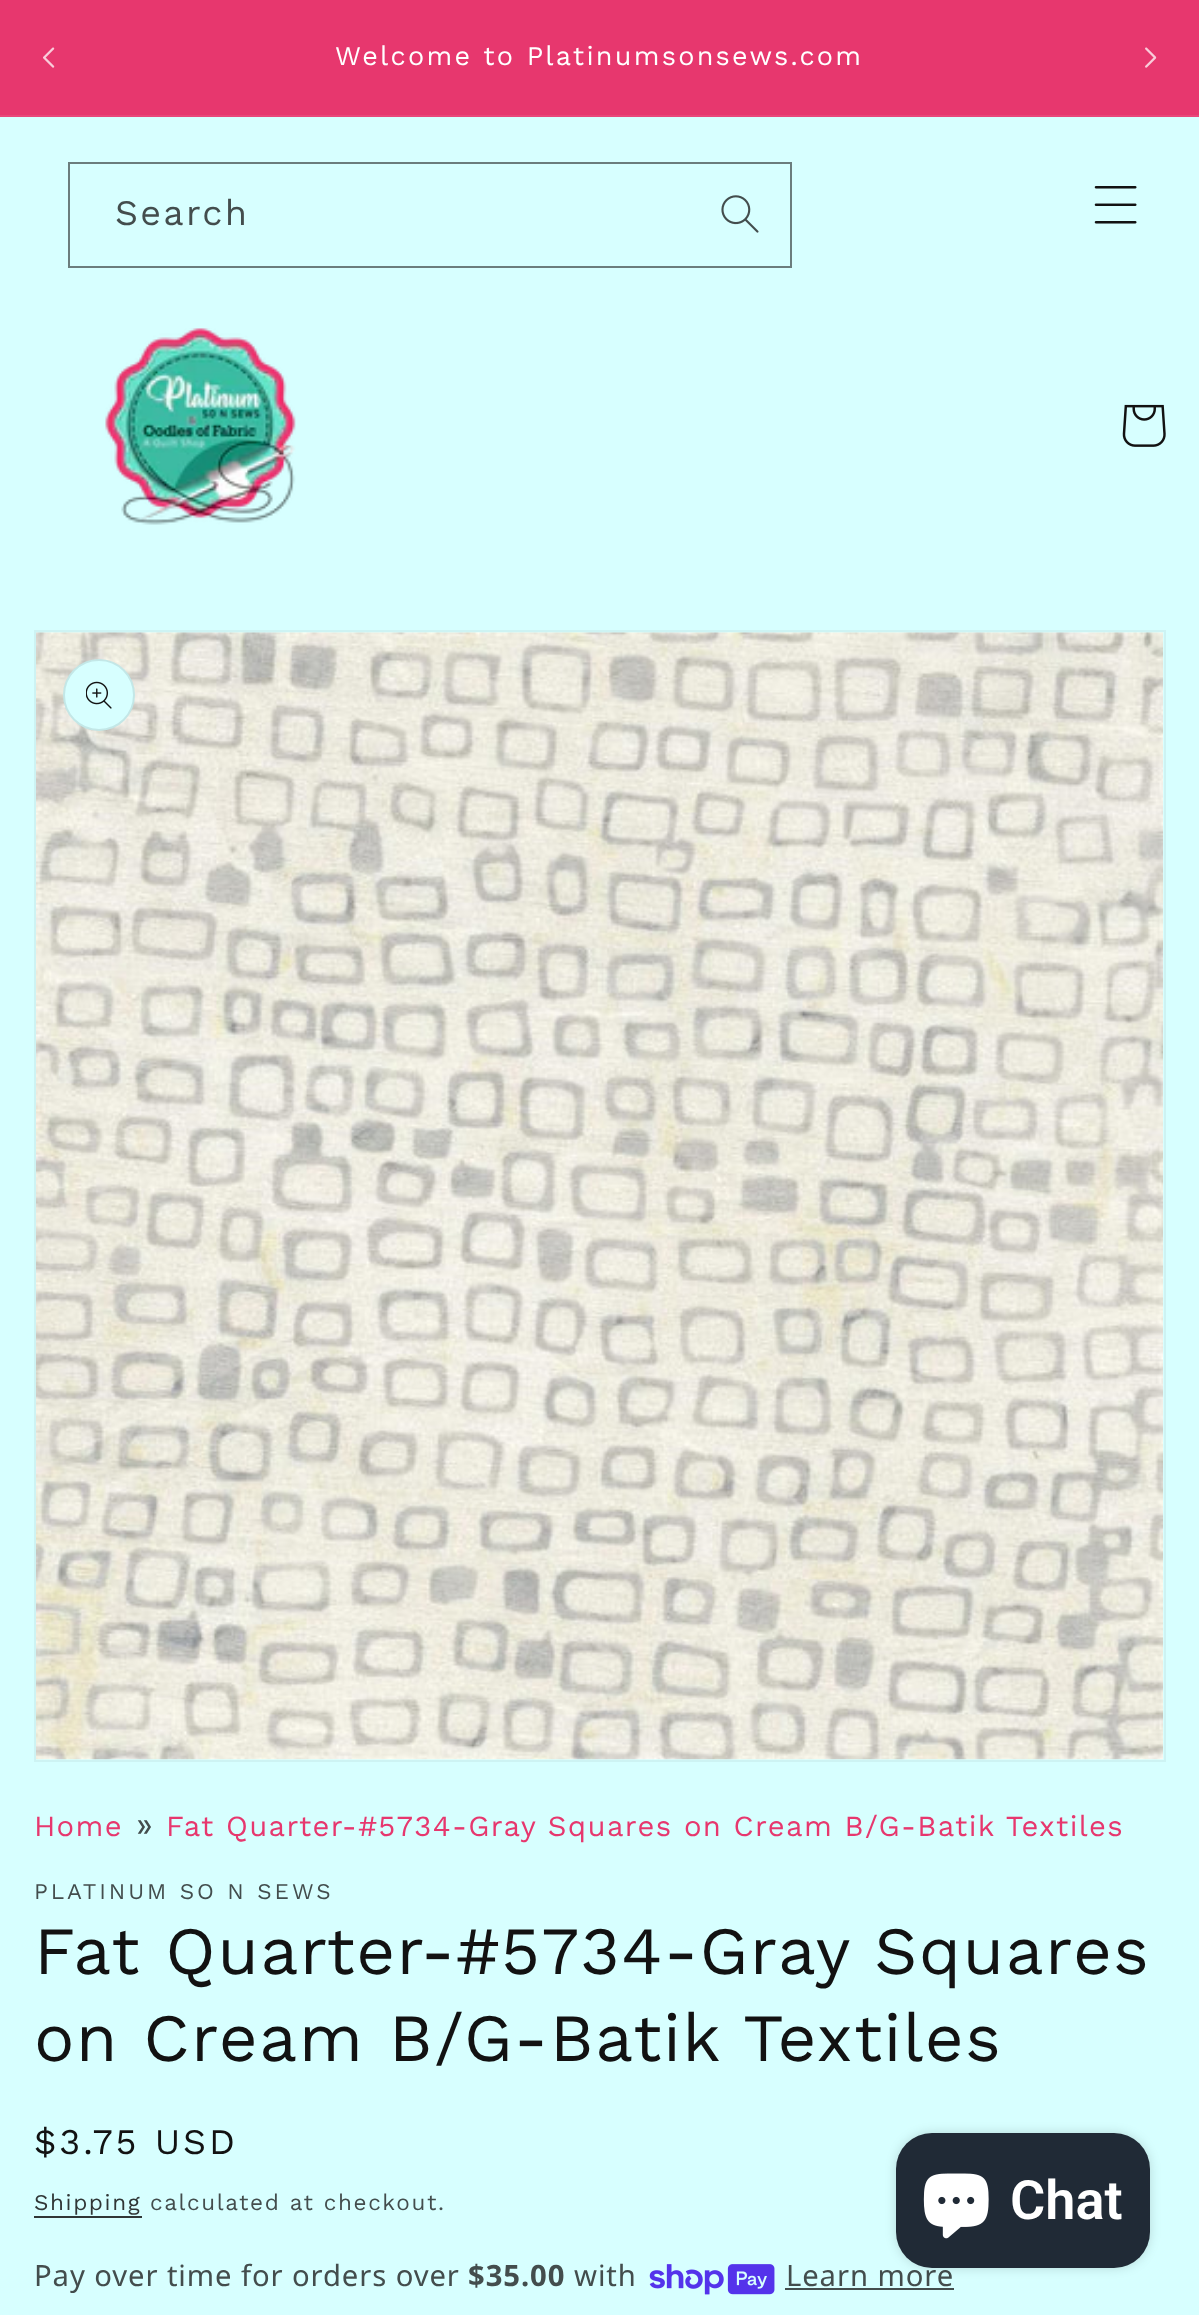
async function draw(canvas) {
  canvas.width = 1199
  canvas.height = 2315
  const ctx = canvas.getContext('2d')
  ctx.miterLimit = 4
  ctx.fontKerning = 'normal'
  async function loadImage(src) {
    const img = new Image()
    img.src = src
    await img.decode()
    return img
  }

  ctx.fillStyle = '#d7ffff'
  ctx.fillRect(0, 0, 1199, 2315)
  ctx.fillStyle = '#e7376e'
  ctx.fillRect(0, 0, 1199, 115)
  ctx.fillStyle = '#e9477a'
  ctx.fillRect(0, 115, 1199, 2)
  ctx.drawImage(await loadImage('image0.png'), 43, 47, 12, 21)
  ctx.letterSpacing = '2.25px'
  ctx.font = '27px Work Sans'
  ctx.fillStyle = '#fff'
  ctx.fillText('Welcome to Platinumsonsews.com', 335, 65)
  ctx.drawImage(await loadImage('image1.png'), 1145, 47, 12, 21)
  ctx.drawImage(await loadImage('image2.png'), 721, 195, 38, 38)
  ctx.strokeStyle = '#6b7d7d'
  ctx.lineWidth = 2
  ctx.strokeRect(69, 163, 722, 104)
  ctx.font = '36px Work Sans'
  ctx.fillStyle = '#434d4d'
  ctx.fillText('Search', 115, 225)
  ctx.drawImage(await loadImage('image3.png'), 1094, 186, 43, 38)
  ctx.drawImage(await loadImage('image4.png'), 105, 328, 191, 197)
  ctx.drawImage(await loadImage('image5.png'), 1122, 404, 44, 43)
  ctx.strokeStyle = '#cdf3f3'
  ctx.strokeRect(35, 631, 1130, 1130)
  ctx.drawImage(await loadImage('image6.png'), 36, 632, 1128, 1128)
  ctx.fillStyle = '#d7ffff'
  ctx.beginPath()
  ctx.arc(99, 695, 36, 0, 2 * Math.PI)
  ctx.fill()
  ctx.beginPath()
  ctx.arc(99, 695, 35, 0, 2 * Math.PI)
  ctx.strokeStyle = '#1212121a'
  ctx.stroke()
  ctx.drawImage(await loadImage('image7.png'), 86, 681, 26, 28)
  ctx.letterSpacing = '1.35px'
  ctx.font = '29.25px Work Sans'
  ctx.fillStyle = '#e7376e'
  ctx.fillText('Home', 34, 1836)
  ctx.font = '34px Work Sans'
  ctx.fillStyle = '#434d4d'
  ctx.fillText('»', 136, 1836)
  ctx.font = '29.25px Work Sans'
  ctx.fillStyle = '#e7376e'
  ctx.fillText('Fat Quarter-#5734-Gray Squares on Cream B/G-Batik Textiles', 166, 1836)
  ctx.letterSpacing = '2.9px'
  ctx.font = '22.5px Work Sans'
  ctx.fillStyle = '#434d4d'
  ctx.fillText('PLATINUM SO N SEWS', 34, 1899)
  ctx.letterSpacing = '1.35px'
  ctx.font = '67.5px Work Sans'
  ctx.fillStyle = '#121212'
  ctx.fillText('Fat Quarter-#5734-Gray Squares', 34, 1974)
  ctx.fillText('on Cream B/G-Batik Textiles', 34, 2061)
  ctx.letterSpacing = '2.9px'
  ctx.font = '36px Work Sans'
  ctx.fillText('$3.75 USD', 34, 2154)
  ctx.letterSpacing = '1.6px'
  ctx.font = '22.5px Work Sans'
  ctx.fillStyle = '#303636'
  ctx.fillText('Shipping', 34, 2210)
  ctx.fillRect(34, 2216, 108, 2)
  ctx.fillStyle = '#434d4d'
  ctx.fillText('calculated at checkout.', 150, 2210)
  ctx.letterSpacing = '0.9px'
  ctx.font = '29.25px Noto Sans'
  ctx.fillText('Pay over time for orders over', 34, 2286)
  ctx.font = 'bold 29.25px Noto Sans'
  ctx.fillText('$35.00', 468, 2286)
  ctx.font = '29.25px Noto Sans'
  ctx.fillText('with', 574, 2286)
  ctx.drawImage(await loadImage('image8.png'), 649, 2264, 126, 31)
  ctx.fillText('Learn more', 786, 2286)
  ctx.fillRect(785, 2288, 169, 2)
  ctx.fillStyle = '#00000026'
  ctx.filter = 'blur(5.5px)'
  ctx.beginPath()
  ctx.roundRect(896, 2133, 254, 135, 36)
  ctx.fill()
  ctx.filter = 'none'
  ctx.fillStyle = '#202a36'
  ctx.beginPath()
  ctx.roundRect(896, 2133, 254, 135, 36)
  ctx.fill()
  ctx.drawImage(await loadImage('image9.png'), 923, 2173, 66, 66)
  ctx.letterSpacing = '0px'
  ctx.font = '600 54px Roboto'
  ctx.fillStyle = '#fff'
  ctx.fillText('Chat', 1010, 2219)
}

draw(document.querySelector('canvas'))
